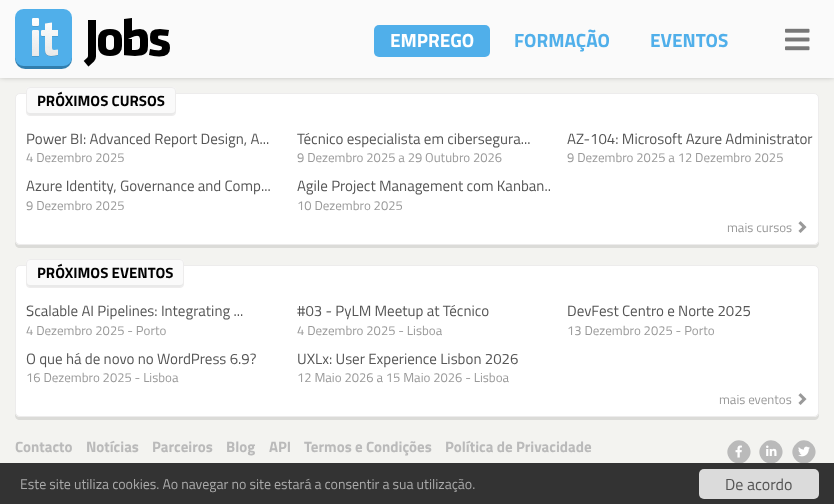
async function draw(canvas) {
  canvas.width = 834
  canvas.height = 504
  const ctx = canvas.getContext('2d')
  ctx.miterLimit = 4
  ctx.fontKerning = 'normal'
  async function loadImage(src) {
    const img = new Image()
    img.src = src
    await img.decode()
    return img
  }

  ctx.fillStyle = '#f3f3f0'
  ctx.fillRect(0, 0, 834, 504)
  ctx.fillStyle = '#00000066'
  ctx.filter = 'blur(3px)'
  ctx.beginPath()
  ctx.rect(0, -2, 834, 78)
  ctx.fill()
  ctx.filter = 'none'
  ctx.fillStyle = '#fafafa'
  ctx.fillRect(0, 0, 834, 78)
  ctx.drawImage(await loadImage('image0.png'), 15, 9, 155, 60)
  ctx.fillStyle = '#50afea'
  ctx.beginPath()
  ctx.roundRect(374, 25, 116, 32, 5)
  ctx.fill()
  ctx.font = 'bold 19px Titillium Web'
  ctx.fillStyle = '#fff'
  ctx.fillText('EMPREGO', 390, 47)
  ctx.fillStyle = '#50afea'
  ctx.fillText('FORMAÇÃO', 514, 47)
  ctx.fillText('EVENTOS', 650, 47)
  ctx.drawImage(await loadImage('image1.png'), 785, 28, 25, 23)
  ctx.fillStyle = '#dbdbd8'
  ctx.beginPath()
  ctx.moveTo(15, 240)
  ctx.lineTo(15, 243)
  ctx.bezierCurveTo(15, 246, 17, 248, 20, 248)
  ctx.lineTo(814, 248)
  ctx.bezierCurveTo(817, 248, 819, 246, 819, 243)
  ctx.lineTo(819, 240)
  ctx.bezierCurveTo(819, 243, 817, 245, 814, 245)
  ctx.lineTo(20, 245)
  ctx.bezierCurveTo(17, 245, 15, 243, 15, 240)
  ctx.closePath()
  ctx.fill()
  ctx.fillStyle = '#fff'
  ctx.beginPath()
  ctx.roundRect(15.5, 93.5, 803, 151, 4.5)
  ctx.fill()
  ctx.strokeStyle = '#edecec'
  ctx.stroke()
  ctx.fillStyle = '#fafafa'
  ctx.beginPath()
  ctx.roundRect(26, 87, 150, 29, 4)
  ctx.fill()
  ctx.fillStyle = '#e9e9e9'
  ctx.beginPath()
  ctx.moveTo(27, 110)
  ctx.lineTo(27, 112)
  ctx.bezierCurveTo(27, 114, 28, 115, 30, 115)
  ctx.lineTo(172, 115)
  ctx.bezierCurveTo(174, 115, 175, 114, 175, 112)
  ctx.lineTo(175, 110)
  ctx.bezierCurveTo(175, 112, 174, 113, 172, 113)
  ctx.lineTo(30, 113)
  ctx.bezierCurveTo(28, 113, 27, 112, 27, 110)
  ctx.closePath()
  ctx.fill()
  ctx.beginPath()
  ctx.roundRect(26.5, 87.5, 149, 28, 3.5)
  ctx.stroke()
  ctx.font = 'bold 15px Titillium Web'
  ctx.fillStyle = '#000'
  ctx.fillText('PRÓXIMOS CURSOS', 37, 106)
  ctx.font = '15px Titillium Web'
  ctx.fillStyle = '#555'
  ctx.fillText('Power BI: Advanced Report Design, A...', 26, 144)
  ctx.font = '13px Titillium Web'
  ctx.fillStyle = '#999'
  ctx.fillText('4 Dezembro 2025', 26, 162)
  ctx.font = '15px Titillium Web'
  ctx.fillStyle = '#555'
  ctx.fillText('Técnico especialista em cibersegura...', 297, 144)
  ctx.font = '13px Titillium Web'
  ctx.fillStyle = '#999'
  ctx.fillText('9 Dezembro 2025 a 29 Outubro 2026', 297, 162)
  ctx.font = '15px Titillium Web'
  ctx.fillStyle = '#555'
  ctx.fillText('AZ-104: Microsoft Azure Administrator', 567, 144)
  ctx.font = '13px Titillium Web'
  ctx.fillStyle = '#999'
  ctx.fillText('9 Dezembro 2025 a 12 Dezembro 2025', 567, 162)
  ctx.font = '15px Titillium Web'
  ctx.fillStyle = '#555'
  ctx.fillText('Azure Identity, Governance and Comp...', 26, 191)
  ctx.font = '13px Titillium Web'
  ctx.fillStyle = '#999'
  ctx.fillText('9 Dezembro 2025', 26, 210)
  ctx.font = '15px Titillium Web'
  ctx.fillStyle = '#555'
  ctx.fillText('Agile Project Management com Kanban..', 297, 191)
  ctx.font = '13px Titillium Web'
  ctx.fillStyle = '#999'
  ctx.fillText('10 Dezembro 2025', 297, 210)
  ctx.fillText('mais cursos', 727, 232)
  ctx.drawImage(await loadImage('image2.png'), 798, 221, 9, 12)
  ctx.fillStyle = '#dbdbd8'
  ctx.beginPath()
  ctx.moveTo(15, 412)
  ctx.lineTo(15, 415)
  ctx.bezierCurveTo(15, 418, 17, 420, 20, 420)
  ctx.lineTo(814, 420)
  ctx.bezierCurveTo(817, 420, 819, 418, 819, 415)
  ctx.lineTo(819, 412)
  ctx.bezierCurveTo(819, 415, 817, 417, 814, 417)
  ctx.lineTo(20, 417)
  ctx.bezierCurveTo(17, 417, 15, 415, 15, 412)
  ctx.closePath()
  ctx.fill()
  ctx.fillStyle = '#fff'
  ctx.beginPath()
  ctx.roundRect(15.5, 265.5, 803, 151, 4.5)
  ctx.fill()
  ctx.stroke()
  ctx.fillStyle = '#fafafa'
  ctx.beginPath()
  ctx.roundRect(26, 259, 158, 29, 4)
  ctx.fill()
  ctx.fillStyle = '#e9e9e9'
  ctx.beginPath()
  ctx.moveTo(27, 282)
  ctx.lineTo(27, 284)
  ctx.bezierCurveTo(27, 286, 28, 287, 30, 287)
  ctx.lineTo(180, 287)
  ctx.bezierCurveTo(182, 287, 183, 286, 183, 284)
  ctx.lineTo(183, 282)
  ctx.bezierCurveTo(183, 284, 182, 285, 180, 285)
  ctx.lineTo(30, 285)
  ctx.bezierCurveTo(28, 285, 27, 284, 27, 282)
  ctx.closePath()
  ctx.fill()
  ctx.beginPath()
  ctx.roundRect(26.5, 259.5, 157, 28, 3.5)
  ctx.stroke()
  ctx.font = 'bold 15px Titillium Web'
  ctx.fillStyle = '#000'
  ctx.fillText('PRÓXIMOS EVENTOS', 37, 278)
  ctx.font = '15px Titillium Web'
  ctx.fillStyle = '#555'
  ctx.fillText('Scalable AI Pipelines: Integrating ...', 26, 316)
  ctx.font = '13px Titillium Web'
  ctx.fillStyle = '#999'
  ctx.fillText('4 Dezembro 2025 - Porto', 26, 335)
  ctx.font = '15px Titillium Web'
  ctx.fillStyle = '#555'
  ctx.fillText('#03 - PyLM Meetup at Técnico', 297, 316)
  ctx.font = '13px Titillium Web'
  ctx.fillStyle = '#999'
  ctx.fillText('4 Dezembro 2025 - Lisboa', 297, 335)
  ctx.font = '15px Titillium Web'
  ctx.fillStyle = '#555'
  ctx.fillText('DevFest Centro e Norte 2025', 567, 316)
  ctx.font = '13px Titillium Web'
  ctx.fillStyle = '#999'
  ctx.fillText('13 Dezembro 2025 - Porto', 567, 335)
  ctx.font = '15px Titillium Web'
  ctx.fillStyle = '#555'
  ctx.fillText('O que há de novo no WordPress 6.9?', 26, 364)
  ctx.font = '13px Titillium Web'
  ctx.fillStyle = '#999'
  ctx.fillText('16 Dezembro 2025 - Lisboa', 26, 382)
  ctx.font = '15px Titillium Web'
  ctx.fillStyle = '#555'
  ctx.fillText('UXLx: User Experience Lisbon 2026', 297, 364)
  ctx.font = '13px Titillium Web'
  ctx.fillStyle = '#999'
  ctx.fillText('12 Maio 2026 a 15 Maio 2026 - Lisboa', 297, 382)
  ctx.fillText('mais eventos', 719, 404)
  ctx.drawImage(await loadImage('image2.png'), 798, 393, 9, 12)
  ctx.font = 'bold 15px Titillium Web'
  ctx.fillStyle = '#bababa'
  ctx.fillText('Contacto', 15, 452)
  ctx.fillText('Notícias', 86, 452)
  ctx.fillText('Parceiros', 152, 452)
  ctx.fillText('Blog', 226, 452)
  ctx.fillText('API', 269, 452)
  ctx.fillText('Termos e Condições', 304, 452)
  ctx.fillText('Política de Privacidade', 445, 452)
  ctx.beginPath()
  ctx.moveTo(731, 444)
  ctx.bezierCurveTo(741.5, 433, 758, 449.5, 747, 460)
  ctx.bezierCurveTo(736.5, 471, 720, 454.5, 731, 444)
  ctx.closePath()
  ctx.fill()
  ctx.drawImage(await loadImage('image3.png'), 735, 445, 7, 13)
  ctx.beginPath()
  ctx.moveTo(763, 444)
  ctx.bezierCurveTo(773.5, 433, 790, 449.5, 779, 460)
  ctx.bezierCurveTo(768.5, 471, 752, 454.5, 763, 444)
  ctx.closePath()
  ctx.fill()
  ctx.drawImage(await loadImage('image4.png'), 766, 445, 11, 11)
  ctx.beginPath()
  ctx.moveTo(796, 444)
  ctx.bezierCurveTo(806.5, 433, 823, 449.5, 812, 460)
  ctx.bezierCurveTo(801.5, 471, 785, 454.5, 796, 444)
  ctx.closePath()
  ctx.fill()
  ctx.drawImage(await loadImage('image5.png'), 798, 446, 12, 11)
  ctx.fillStyle = '#333'
  ctx.fillRect(0, 463, 834, 41)
  ctx.font = '14px Titillium Web'
  ctx.fillStyle = '#aaa'
  ctx.fillText('Este site utiliza cookies. Ao navegar no site estará a consentir a sua utilização.', 20, 489)
  ctx.fillStyle = '#dbdbdb'
  ctx.beginPath()
  ctx.roundRect(699, 469, 120, 30, 5)
  ctx.fill()
  ctx.font = '16px Titillium Web'
  ctx.fillStyle = '#555'
  ctx.fillText('De acordo', 725, 490)
}

draw(document.querySelector('canvas'))
